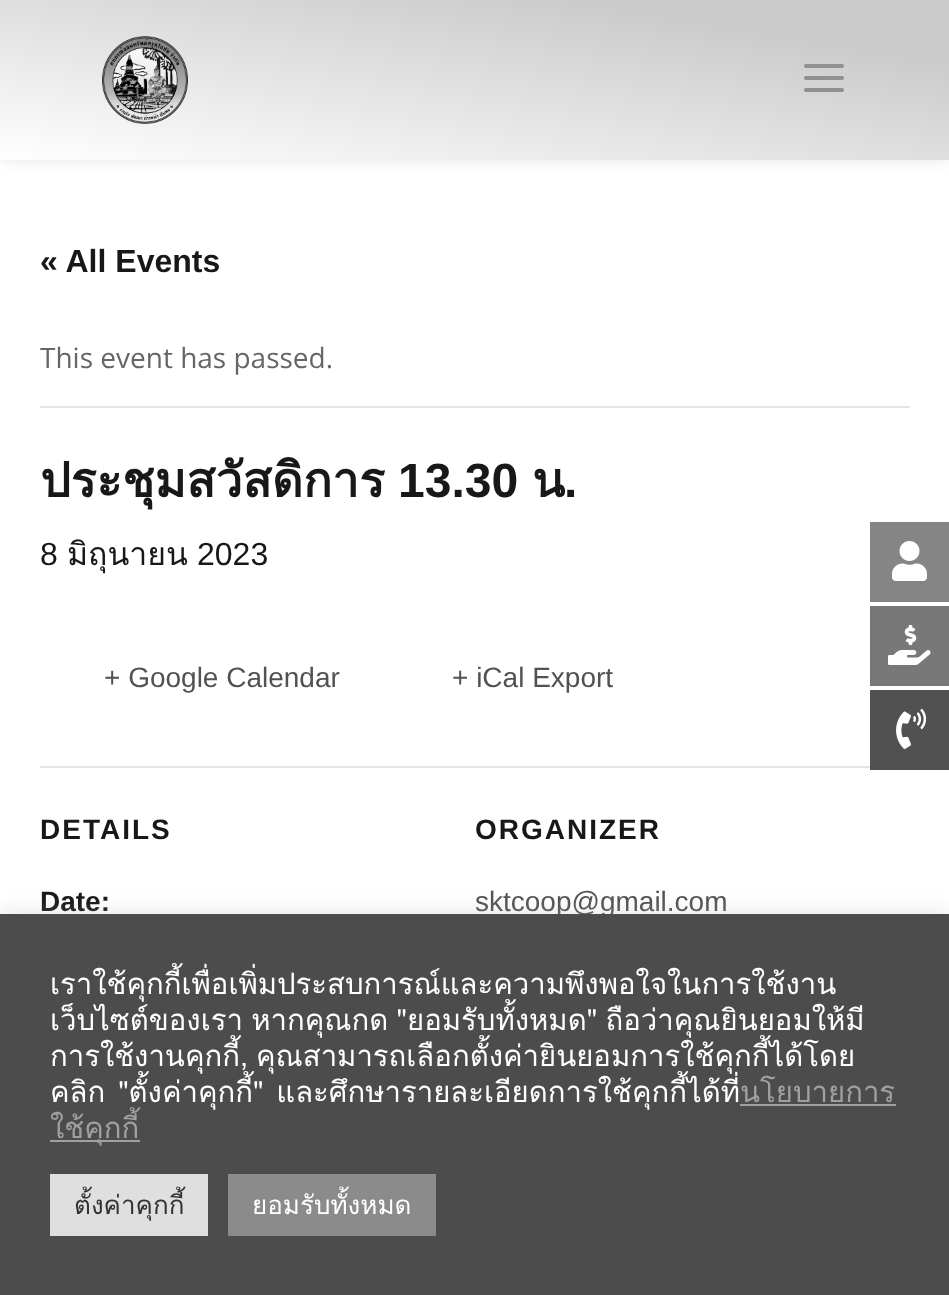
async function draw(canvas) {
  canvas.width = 949
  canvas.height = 1295
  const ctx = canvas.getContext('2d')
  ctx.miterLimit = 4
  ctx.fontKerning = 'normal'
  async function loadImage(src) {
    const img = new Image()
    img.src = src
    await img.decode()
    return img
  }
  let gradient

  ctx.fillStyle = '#fff'
  ctx.fillRect(0, 0, 949, 1295)
  ctx.fillStyle = '#0000001a'
  ctx.filter = 'blur(7px)'
  ctx.beginPath()
  ctx.rect(0, 0, 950, 160)
  ctx.fill()
  ctx.filter = 'none'
  gradient = ctx.createLinearGradient(501, -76, 449, 236)
  gradient.addColorStop(0.2, '#cbcbcb')
  gradient.addColorStop(1, '#fff')
  ctx.fillStyle = gradient
  ctx.fillRect(0, 0, 949, 160)
  ctx.drawImage(await loadImage('image0.png'), 102, 36, 86, 88)
  ctx.drawImage(await loadImage('image1.png'), 804, 64, 40, 28)
  ctx.font = 'bold 32px Liberation Sans'
  ctx.fillStyle = '#181818'
  ctx.fillText('« All Events', 40, 272)
  ctx.fillStyle = '#e4e4e4'
  ctx.fillRect(40, 406, 870, 2)
  ctx.font = '28px Open Sans'
  ctx.fillStyle = '#666'
  ctx.fillText('This event has passed.', 40, 368)
  ctx.font = 'bold 48px Loma'
  ctx.fillStyle = '#181818'
  ctx.fillText('ประชุมสวัสดิการ', 40, 497)
  ctx.font = 'bold 48px Liberation Sans'
  ctx.fillText('13.30', 398, 497)
  ctx.font = 'bold 48px Loma'
  ctx.fillText('น', 532, 497)
  ctx.font = 'bold 48px Liberation Sans'
  ctx.fillText('.', 564, 497)
  ctx.font = '32px Liberation Sans'
  ctx.fillText('8', 40, 565)
  ctx.font = '32px Loma'
  ctx.fillText('มิถุนายน', 67, 565)
  ctx.font = '32px Liberation Sans'
  ctx.fillText('2023', 197, 565)
  ctx.font = '28px Liberation Sans'
  ctx.fillStyle = '#525252'
  ctx.fillText('+ Google Calendar', 104, 687)
  ctx.fillText('+ iCal Export', 452, 687)
  ctx.fillStyle = '#e4e4e4'
  ctx.fillRect(40, 766, 830, 2)
  ctx.letterSpacing = '2px'
  ctx.font = 'bold 28px Liberation Sans'
  ctx.fillStyle = '#181818'
  ctx.fillText('DETAILS', 40, 839)
  ctx.letterSpacing = '0px'
  ctx.fillText('Date:', 40, 911)
  ctx.letterSpacing = '2px'
  ctx.fillText('ORGANIZER', 475, 839)
  ctx.letterSpacing = '0px'
  ctx.font = '28px Liberation Sans'
  ctx.fillStyle = '#525252'
  ctx.fillText('sktcoop@gmail.com', 475, 911)
  ctx.fillStyle = '#858585'
  ctx.fillRect(870, 522, 79, 80)
  ctx.drawImage(await loadImage('image2.png'), 892, 541, 35, 40)
  ctx.fillStyle = '#787878'
  ctx.fillRect(870, 606, 79, 80)
  ctx.drawImage(await loadImage('image3.png'), 888, 625, 43, 40)
  ctx.fillStyle = '#515151'
  ctx.fillRect(870, 690, 79, 80)
  ctx.drawImage(await loadImage('image4.png'), 896, 708, 31, 41)
  ctx.fillStyle = '#ababab4d'
  ctx.filter = 'blur(10px)'
  ctx.beginPath()
  ctx.rect(0, 912, 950, 382)
  ctx.fill()
  ctx.filter = 'none'
  ctx.fillStyle = '#4c4c4c'
  ctx.fillRect(0, 914, 949, 381)
  ctx.font = '29.3px Loma'
  ctx.fillStyle = '#fff'
  ctx.fillText('เราใช้คุกกี้เพื่อเพิ่มประสบการณ์และความพึงพอใจในการใช้งาน', 50, 994)
  ctx.wordSpacing = '-1.5px'
  ctx.fillText('เว็บไซต์ของเรา หากคุณกด "ยอมรับทั้งหมด" ถือว่าคุณยินยอมให้มี', 50, 1030)
  ctx.wordSpacing = '-2px'
  ctx.fillText('การใช้งานคุกกี้, คุณสามารถเลือกตั้งค่ายินยอมการใช้คุกกี้ได้โดย', 50, 1066)
  ctx.wordSpacing = '3px'
  ctx.fillText('คลิก "ตั้งค่าคุกกี้" และศึกษารายละเอียดการใช้คุกกี้ได้ที่', 50, 1102)
  ctx.wordSpacing = '0px'
  ctx.fillStyle = '#a0a0a0'
  ctx.fillText('นโยบายการ', 740, 1102)
  ctx.fillRect(740, 1104, 156, 2)
  ctx.fillRect(50, 1140, 90, 2)
  ctx.fillText('ใช้คุกกี้', 50, 1138)
  ctx.fillStyle = '#dfdfdf'
  ctx.fillRect(50, 1174, 158, 62)
  ctx.font = '26px Loma'
  ctx.fillStyle = '#333'
  ctx.fillText('ตั้งค่าคุกกี้', 74, 1214)
  ctx.fillStyle = '#8b8b8b'
  ctx.fillRect(228, 1174, 208, 62)
  ctx.fillStyle = '#fff'
  ctx.fillText('ยอมรับทั้งหมด', 252, 1214)
}

draw(document.querySelector('canvas'))
